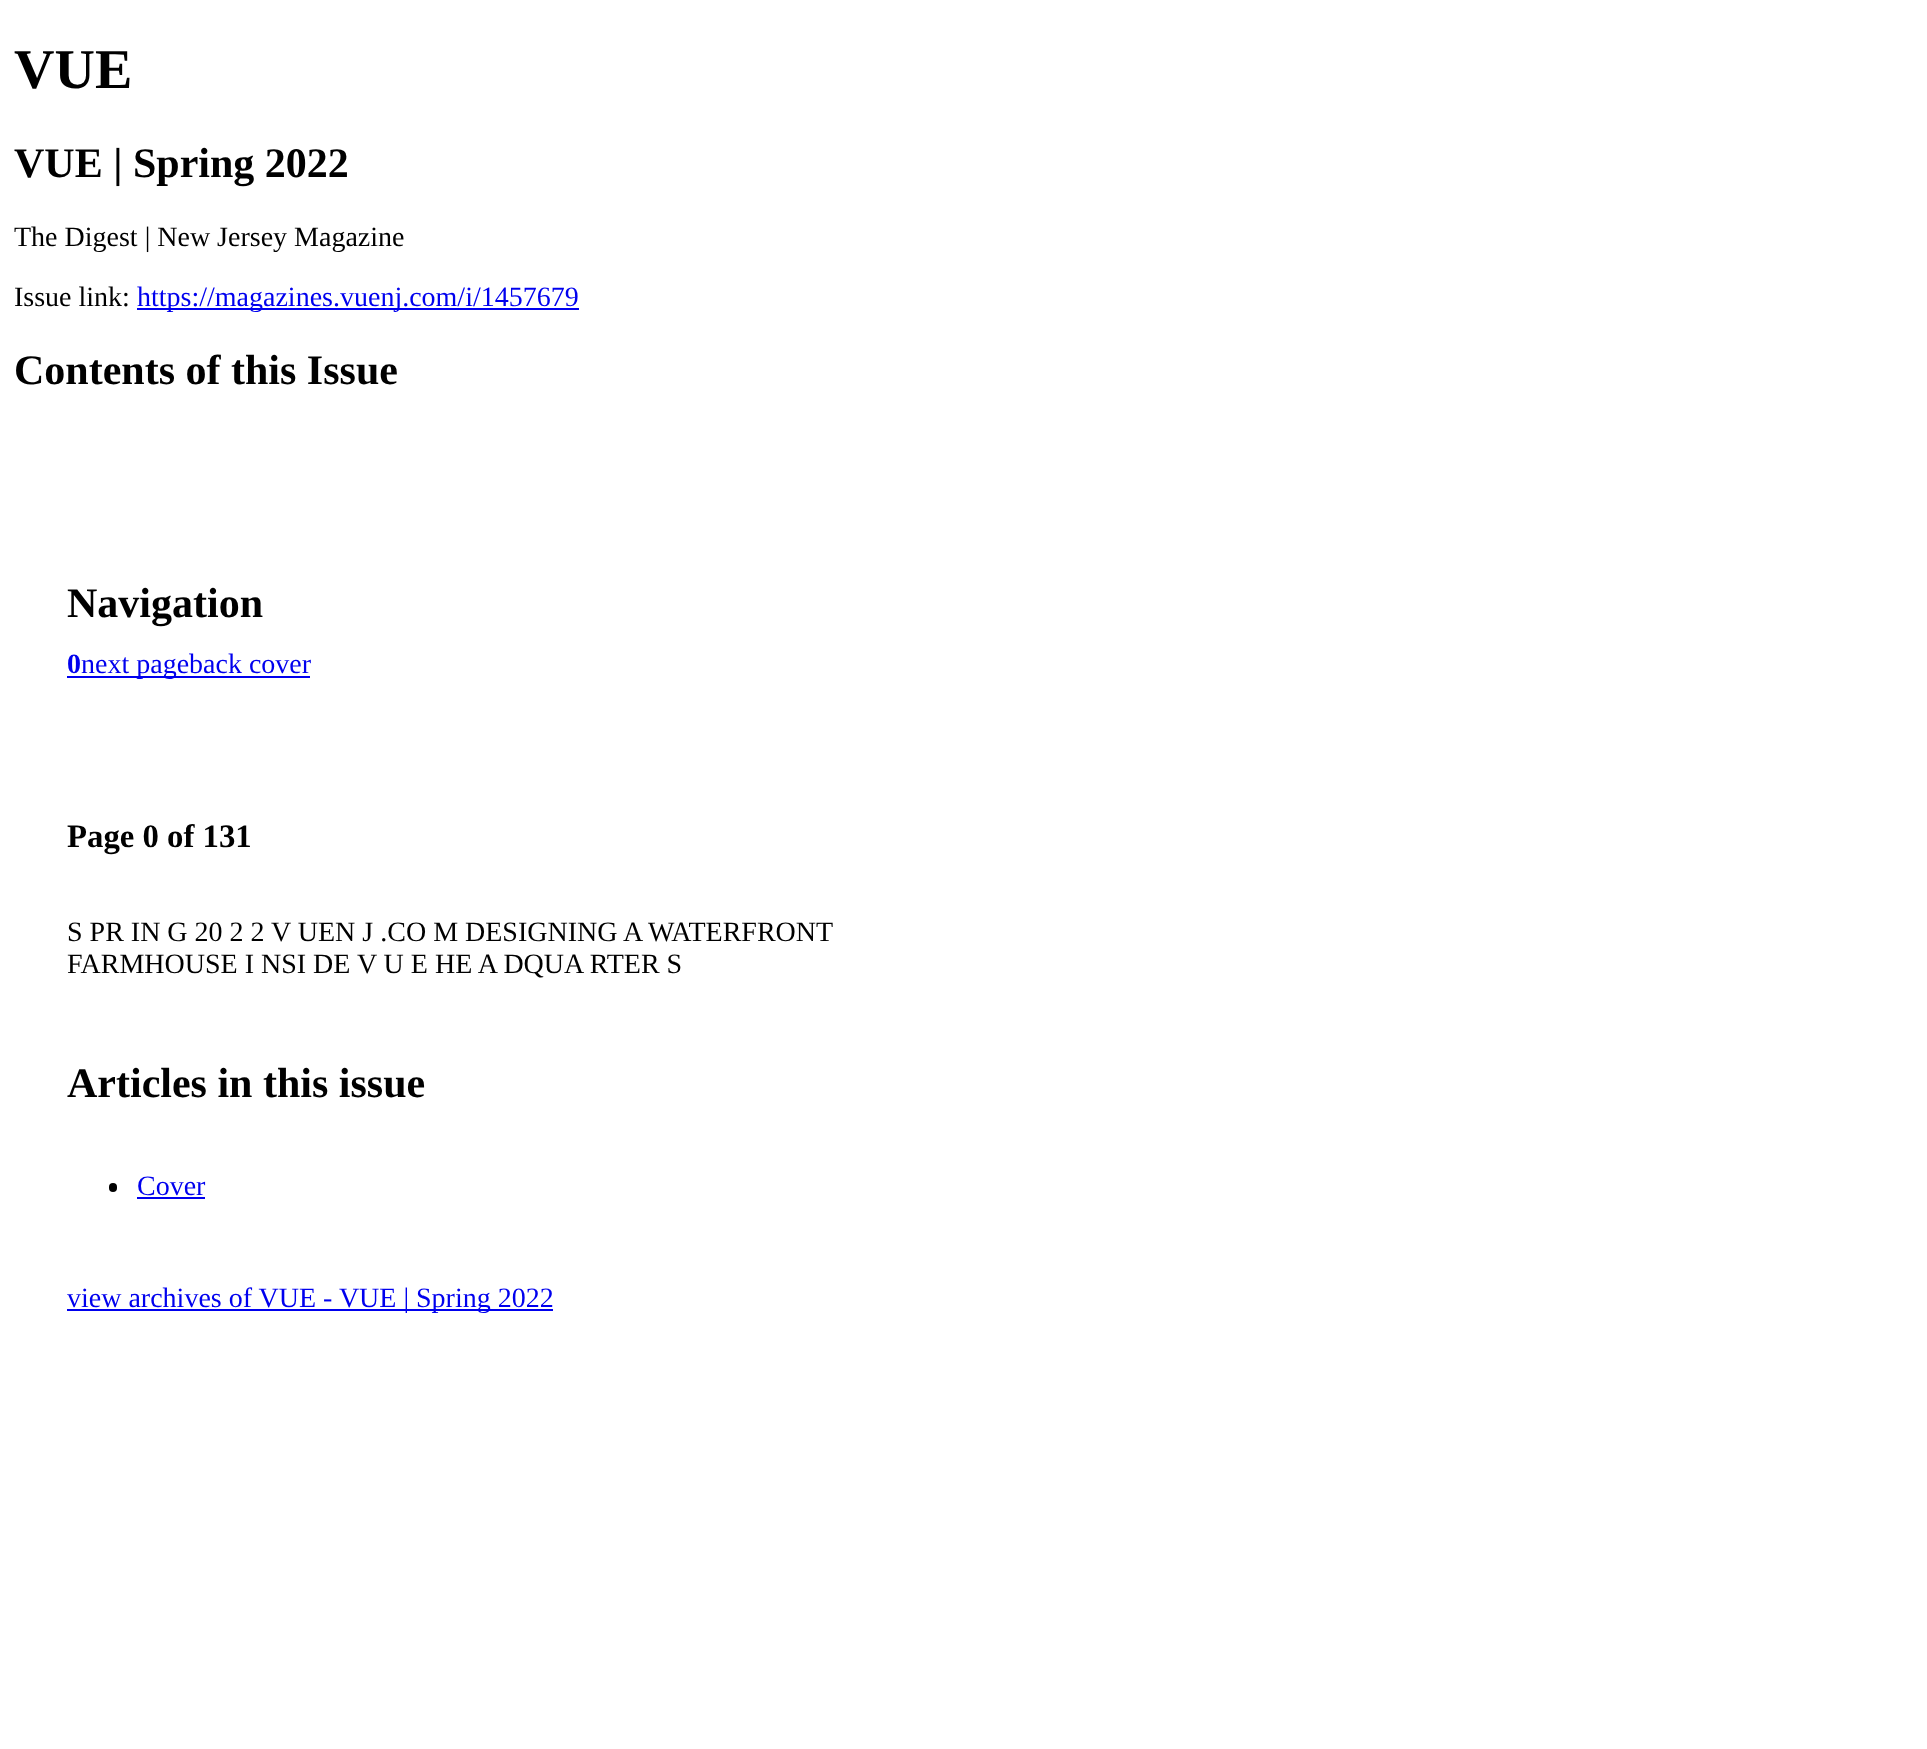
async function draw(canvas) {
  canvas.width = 1927
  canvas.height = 1749
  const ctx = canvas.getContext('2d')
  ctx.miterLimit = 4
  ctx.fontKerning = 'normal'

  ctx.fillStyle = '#fff'
  ctx.fillRect(0, 0, 1927, 1749)
  ctx.font = 'bold 56px Liberation Serif'
  ctx.fillStyle = '#000'
  ctx.fillText('VUE', 14, 88)
  ctx.font = 'bold 42px Liberation Serif'
  ctx.fillText('VUE | Spring 2022', 14, 177)
  ctx.font = '28px Liberation Serif'
  ctx.fillText('The Digest | New Jersey Magazine', 14, 246)
  ctx.fillText('Issue link:', 14, 306)
  ctx.fillStyle = '#00e'
  ctx.fillRect(137, 308, 442, 2)
  ctx.fillText('https://magazines.vuenj.com/i/1457679', 137, 306)
  ctx.font = 'bold 42px Liberation Serif'
  ctx.fillStyle = '#000'
  ctx.fillText('Contents of this Issue', 14, 384)
  ctx.fillText('Navigation', 67, 617)
  ctx.font = 'bold 28px Liberation Serif'
  ctx.fillStyle = '#00e'
  ctx.fillText('0', 67, 673)
  ctx.fillRect(67, 676, 243, 2)
  ctx.font = '28px Liberation Serif'
  ctx.fillText('next pageback cover', 81, 673)
  ctx.font = 'bold 32.75px Liberation Serif'
  ctx.fillStyle = '#000'
  ctx.fillText('Page 0 of 131', 67, 847)
  ctx.font = '28px Liberation Serif'
  ctx.fillText('S PR IN G 20 2 2 V UEN J .CO M DESIGNING A', 67, 941)
  ctx.fillText('WATERFRONT', 648, 941)
  ctx.fillText('FARMHOUSE I NSI DE V U E HE A DQUA RTER S', 67, 973)
  ctx.font = 'bold 42px Liberation Serif'
  ctx.fillText('Articles in this issue', 67, 1097)
  ctx.beginPath()
  ctx.roundRect(109, 1183, 8, 9, 4)
  ctx.fill()
  ctx.font = '28px Liberation Serif'
  ctx.fillStyle = '#00e'
  ctx.fillText('Cover', 137, 1195)
  ctx.fillRect(137, 1197, 68, 2)
  ctx.fillRect(67, 1309, 486, 2)
  ctx.fillText('view archives of VUE - VUE | Spring 2022', 67, 1307)
}

draw(document.querySelector('canvas'))
